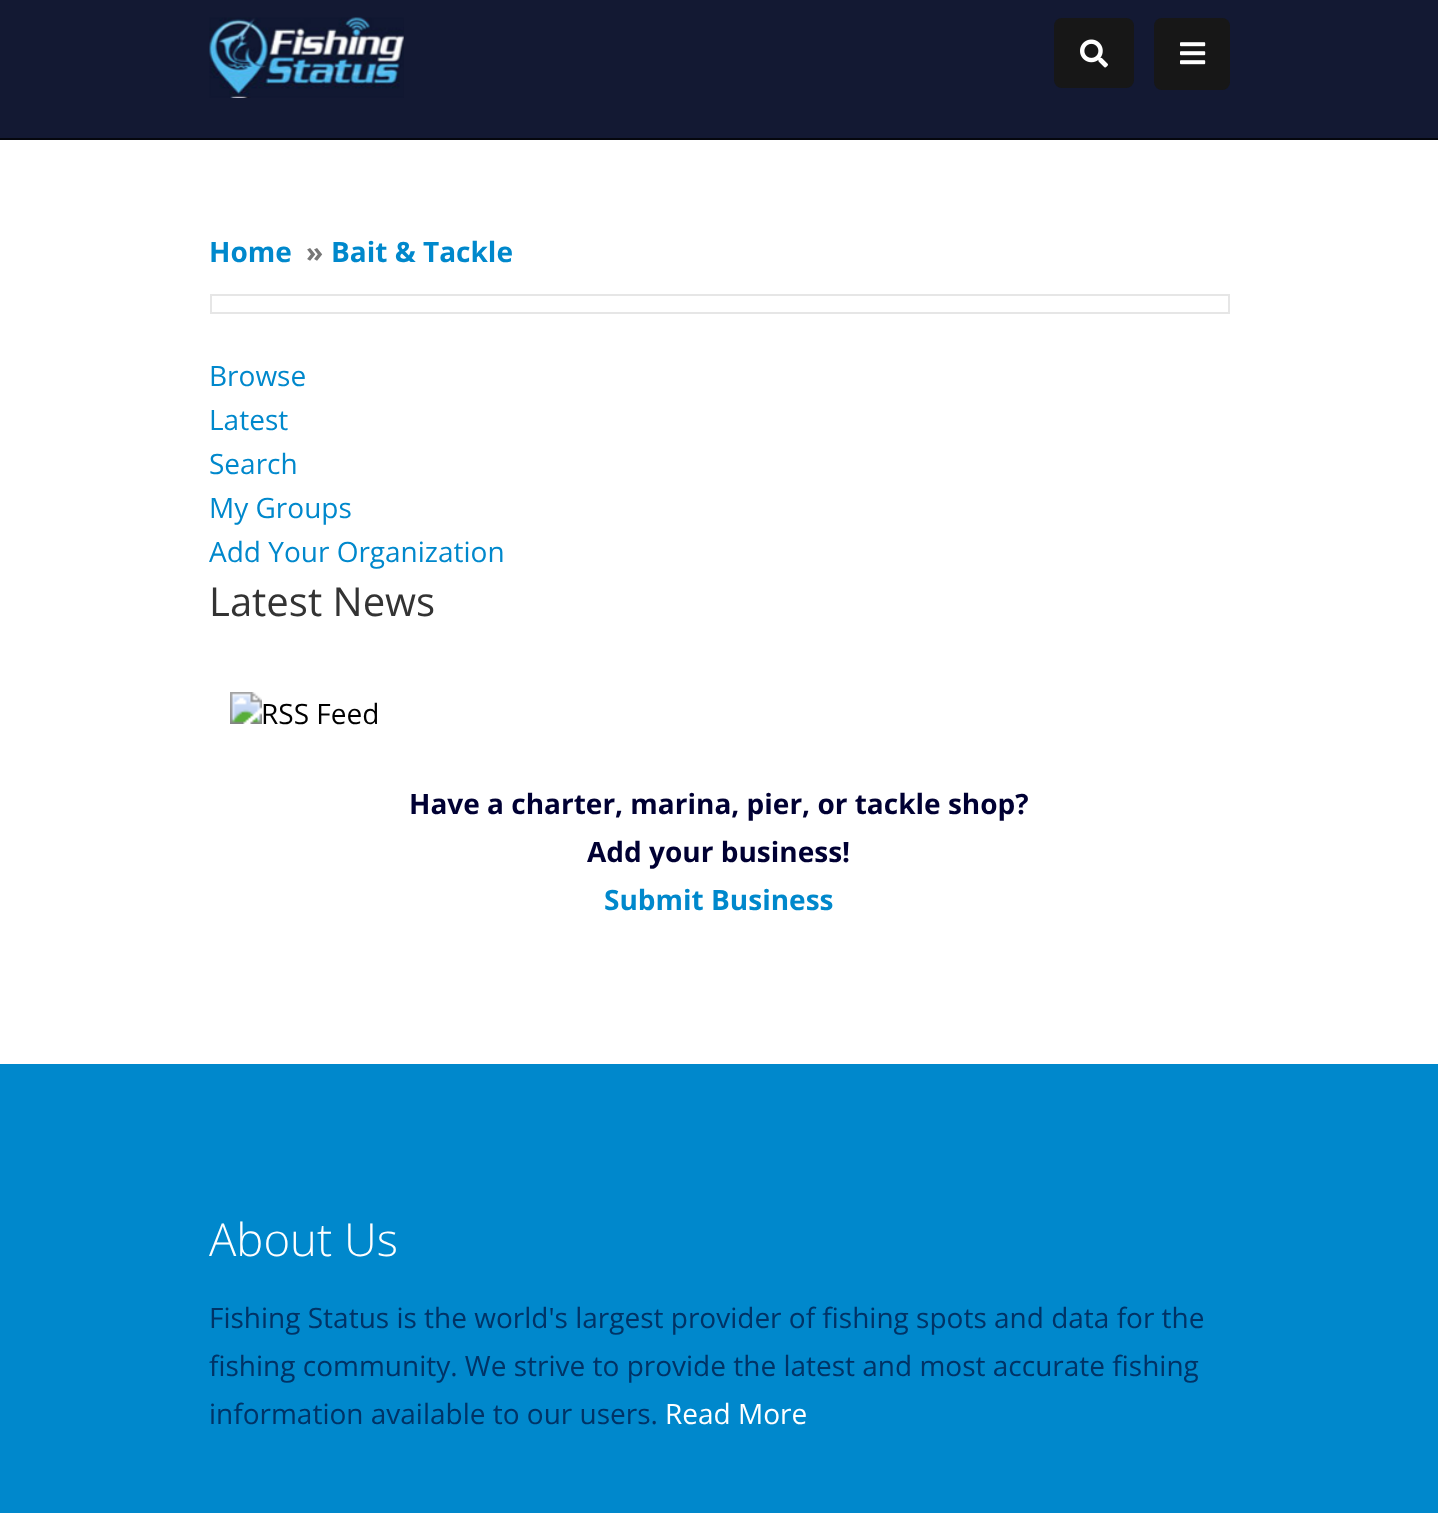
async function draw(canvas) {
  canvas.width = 1438
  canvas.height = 1513
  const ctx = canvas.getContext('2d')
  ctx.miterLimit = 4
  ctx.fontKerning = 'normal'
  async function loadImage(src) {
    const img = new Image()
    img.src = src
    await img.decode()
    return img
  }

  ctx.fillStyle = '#fff'
  ctx.fillRect(0, 0, 1438, 1513)
  ctx.fillStyle = '#131933'
  ctx.fillRect(0, 0, 1438, 138)
  ctx.fillStyle = '#05070e'
  ctx.fillRect(0, 138, 1438, 2)
  ctx.drawImage(await loadImage('image0.png'), 209, 17, 195, 81)
  ctx.fillStyle = '#171717'
  ctx.beginPath()
  ctx.roundRect(1054, 18, 80, 70, 8)
  ctx.fill()
  ctx.drawImage(await loadImage('image1.png'), 1080, 39, 28, 29)
  ctx.beginPath()
  ctx.roundRect(1154, 18, 76, 72, 8)
  ctx.fill()
  ctx.drawImage(await loadImage('image2.png'), 1180, 42, 26, 23)
  ctx.font = 'bold 28px Open Sans'
  ctx.fillStyle = '#08c'
  ctx.fillText('Home', 209, 262)
  ctx.fillStyle = '#777'
  ctx.fillText('»', 306, 262)
  ctx.fillStyle = '#08c'
  ctx.fillText('Bait & Tackle', 331, 262)
  ctx.fillStyle = '#e6e6e6'
  ctx.fillRect(210, 294, 1020, 2)
  ctx.fillRect(1228, 294, 2, 20)
  ctx.fillRect(210, 312, 1020, 2)
  ctx.fillRect(210, 294, 2, 20)
  ctx.font = '28px Open Sans'
  ctx.fillStyle = '#08c'
  ctx.fillText('Browse', 209, 386)
  ctx.fillText('Latest', 209, 430)
  ctx.fillText('Search', 209, 474)
  ctx.fillText('My Groups', 209, 518)
  ctx.fillText('Add Your Organization', 209, 562)
  ctx.font = '40px Open Sans'
  ctx.fillStyle = '#333'
  ctx.fillText('Latest News', 209, 616)
  ctx.drawImage(await loadImage('image3.png'), 230, 692, 147, 33)
  ctx.font = 'bold 28px Open Sans'
  ctx.fillStyle = '#003'
  ctx.fillText('Have a charter, marina, pier, or tackle shop?', 409, 814)
  ctx.fillText('Add your business!', 587, 862)
  ctx.fillStyle = '#08c'
  ctx.fillText('Submit Business', 604, 910)
  ctx.fillRect(0, 1064, 1438, 449)
  ctx.font = '300 45.5px Open Sans'
  ctx.fillStyle = '#fff'
  ctx.fillText('About Us', 209, 1256)
  ctx.font = '28px Open Sans'
  ctx.fillStyle = '#036'
  ctx.fillText('Fishing Status is the world\'s largest provider of fishing spots and data for the', 209, 1328)
  ctx.fillText('fishing community. We strive to provide the latest and most accurate fishing', 209, 1376)
  ctx.fillText('information available to our users.', 209, 1424)
  ctx.fillStyle = '#fff'
  ctx.fillText('Read More', 665, 1424)
}

draw(document.querySelector('canvas'))
